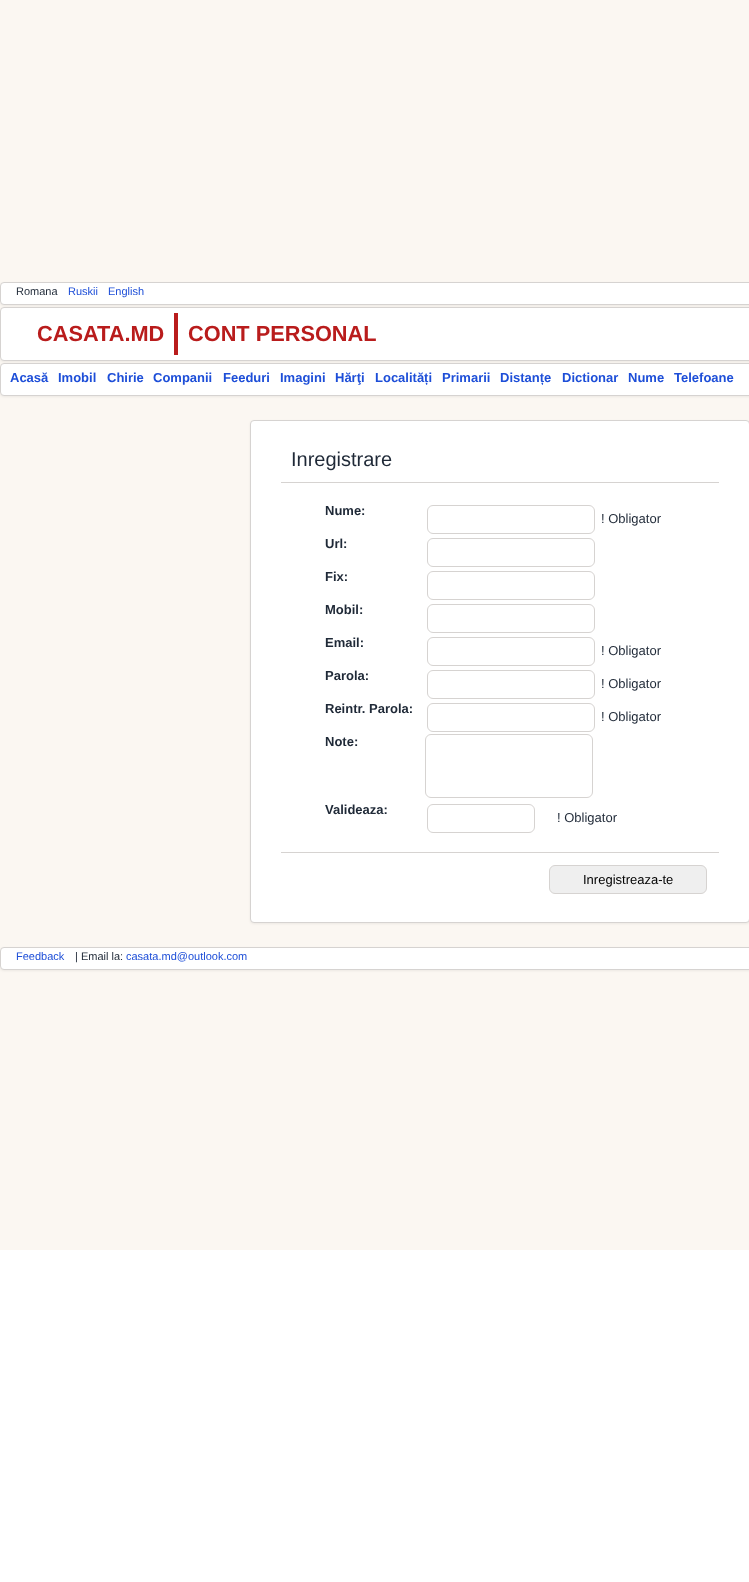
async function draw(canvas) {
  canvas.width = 749
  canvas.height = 1582
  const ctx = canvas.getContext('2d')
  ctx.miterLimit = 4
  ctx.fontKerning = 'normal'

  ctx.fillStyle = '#fff'
  ctx.fillRect(0, 0, 749, 1582)
  ctx.fillStyle = '#fbf7f2'
  ctx.fillRect(0, 0, 749, 1250)
  ctx.fillStyle = '#0000000f'
  ctx.filter = 'blur(1px)'
  ctx.beginPath()
  ctx.roundRect(0, 283, 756, 23, 4)
  ctx.fill()
  ctx.filter = 'none'
  ctx.fillStyle = '#fff'
  ctx.beginPath()
  ctx.roundRect(0.5, 282.5, 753, 22, 3.5)
  ctx.fill()
  ctx.strokeStyle = '#d6d3d1'
  ctx.stroke()
  ctx.font = '11px Liberation Sans'
  ctx.fillStyle = '#1f2937'
  ctx.fillText('Romana', 16, 295)
  ctx.fillStyle = '#1d4ed8'
  ctx.fillText('Ruskii', 68, 295)
  ctx.fillText('English', 108, 295)
  ctx.fillStyle = '#0000000f'
  ctx.filter = 'blur(1px)'
  ctx.beginPath()
  ctx.roundRect(0, 308, 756, 54, 4)
  ctx.fill()
  ctx.filter = 'none'
  ctx.fillStyle = '#fff'
  ctx.beginPath()
  ctx.roundRect(0.5, 307.5, 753, 53, 3.5)
  ctx.fill()
  ctx.stroke()
  ctx.fillStyle = '#b91c1c'
  ctx.fillRect(174, 313, 4, 42)
  ctx.font = 'bold 21.75px Liberation Sans'
  ctx.fillText('CASATA.MD', 37, 341)
  ctx.fillText('CONT PERSONAL', 188, 341)
  ctx.fillStyle = '#0000000f'
  ctx.filter = 'blur(1px)'
  ctx.beginPath()
  ctx.roundRect(0, 364, 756, 33, 4)
  ctx.fill()
  ctx.filter = 'none'
  ctx.fillStyle = '#fff'
  ctx.beginPath()
  ctx.roundRect(0.5, 363.5, 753, 32, 3.5)
  ctx.fill()
  ctx.stroke()
  ctx.font = 'bold 13px Liberation Sans'
  ctx.fillStyle = '#1d4ed8'
  ctx.fillText('Acasă', 10, 382)
  ctx.fillText('Imobil', 58, 382)
  ctx.fillText('Chirie', 107, 382)
  ctx.fillText('Companii', 153, 382)
  ctx.fillText('Feeduri', 223, 382)
  ctx.fillText('Imagini', 280, 382)
  ctx.fillText('Hărţi', 335, 382)
  ctx.fillText('Localități', 375, 382)
  ctx.fillText('Primarii', 442, 382)
  ctx.fillText('Distanțe', 500, 382)
  ctx.fillText('Dictionar', 562, 382)
  ctx.fillText('Nume', 628, 382)
  ctx.fillText('Telefoane', 674, 382)
  ctx.fillStyle = '#0000000f'
  ctx.filter = 'blur(1px)'
  ctx.beginPath()
  ctx.roundRect(250, 421, 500, 503, 4)
  ctx.fill()
  ctx.filter = 'none'
  ctx.fillStyle = '#fff'
  ctx.beginPath()
  ctx.roundRect(250.5, 420.5, 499, 502, 3.5)
  ctx.fill()
  ctx.stroke()
  ctx.fillStyle = '#d6d3d1'
  ctx.fillRect(281, 482, 438, 1)
  ctx.font = '20px Liberation Sans'
  ctx.fillStyle = '#1f2937'
  ctx.fillText('Inregistrare', 291, 466)
  ctx.font = 'bold 13px Liberation Sans'
  ctx.fillText('Nume:', 325, 515)
  ctx.beginPath()
  ctx.roundRect(427.5, 505.5, 167, 28, 5.5)
  ctx.stroke()
  ctx.font = '13px Liberation Sans'
  ctx.fillText('! Obligator', 601, 523)
  ctx.font = 'bold 13px Liberation Sans'
  ctx.fillText('Url:', 325, 548)
  ctx.beginPath()
  ctx.roundRect(427.5, 538.5, 167, 28, 5.5)
  ctx.stroke()
  ctx.fillText('Fix:', 325, 581)
  ctx.beginPath()
  ctx.roundRect(427.5, 571.5, 167, 28, 5.5)
  ctx.stroke()
  ctx.fillText('Mobil:', 325, 614)
  ctx.beginPath()
  ctx.roundRect(427.5, 604.5, 167, 28, 5.5)
  ctx.stroke()
  ctx.fillText('Email:', 325, 647)
  ctx.beginPath()
  ctx.roundRect(427.5, 637.5, 167, 28, 5.5)
  ctx.stroke()
  ctx.font = '13px Liberation Sans'
  ctx.fillText('! Obligator', 601, 655)
  ctx.font = 'bold 13px Liberation Sans'
  ctx.fillText('Parola:', 325, 680)
  ctx.beginPath()
  ctx.roundRect(427.5, 670.5, 167, 28, 5.5)
  ctx.stroke()
  ctx.font = '13px Liberation Sans'
  ctx.fillText('! Obligator', 601, 688)
  ctx.font = 'bold 13px Liberation Sans'
  ctx.fillText('Reintr. Parola:', 325, 713)
  ctx.beginPath()
  ctx.roundRect(427.5, 703.5, 167, 28, 5.5)
  ctx.stroke()
  ctx.font = '13px Liberation Sans'
  ctx.fillText('! Obligator', 601, 721)
  ctx.font = 'bold 13px Liberation Sans'
  ctx.fillText('Note:', 325, 746)
  ctx.beginPath()
  ctx.roundRect(425.5, 734.5, 167, 63, 5.5)
  ctx.stroke()
  ctx.fillText('Valideaza:', 325, 814)
  ctx.beginPath()
  ctx.roundRect(427.5, 804.5, 107, 28, 5.5)
  ctx.stroke()
  ctx.font = '13px Liberation Sans'
  ctx.fillText('! Obligator', 557, 822)
  ctx.fillStyle = '#d6d3d1'
  ctx.fillRect(281, 852, 438, 1)
  ctx.fillStyle = '#efefef'
  ctx.beginPath()
  ctx.roundRect(549.5, 865.5, 157, 28, 5.5)
  ctx.fill()
  ctx.stroke()
  ctx.fillStyle = '#000'
  ctx.fillText('Inregistreaza-te', 583, 884)
  ctx.fillStyle = '#0000000f'
  ctx.filter = 'blur(1px)'
  ctx.beginPath()
  ctx.roundRect(0, 948, 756, 23, 4)
  ctx.fill()
  ctx.filter = 'none'
  ctx.fillStyle = '#fff'
  ctx.beginPath()
  ctx.roundRect(0.5, 947.5, 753, 22, 3.5)
  ctx.fill()
  ctx.stroke()
  ctx.font = '11px Liberation Sans'
  ctx.fillStyle = '#1d4ed8'
  ctx.fillText('Feedback', 16, 960)
  ctx.fillStyle = '#1f2937'
  ctx.fillText('| Email la:', 75, 960)
  ctx.fillStyle = '#1d4ed8'
  ctx.fillText('casata.md@outlook.com', 126, 960)
}

draw(document.querySelector('canvas'))
